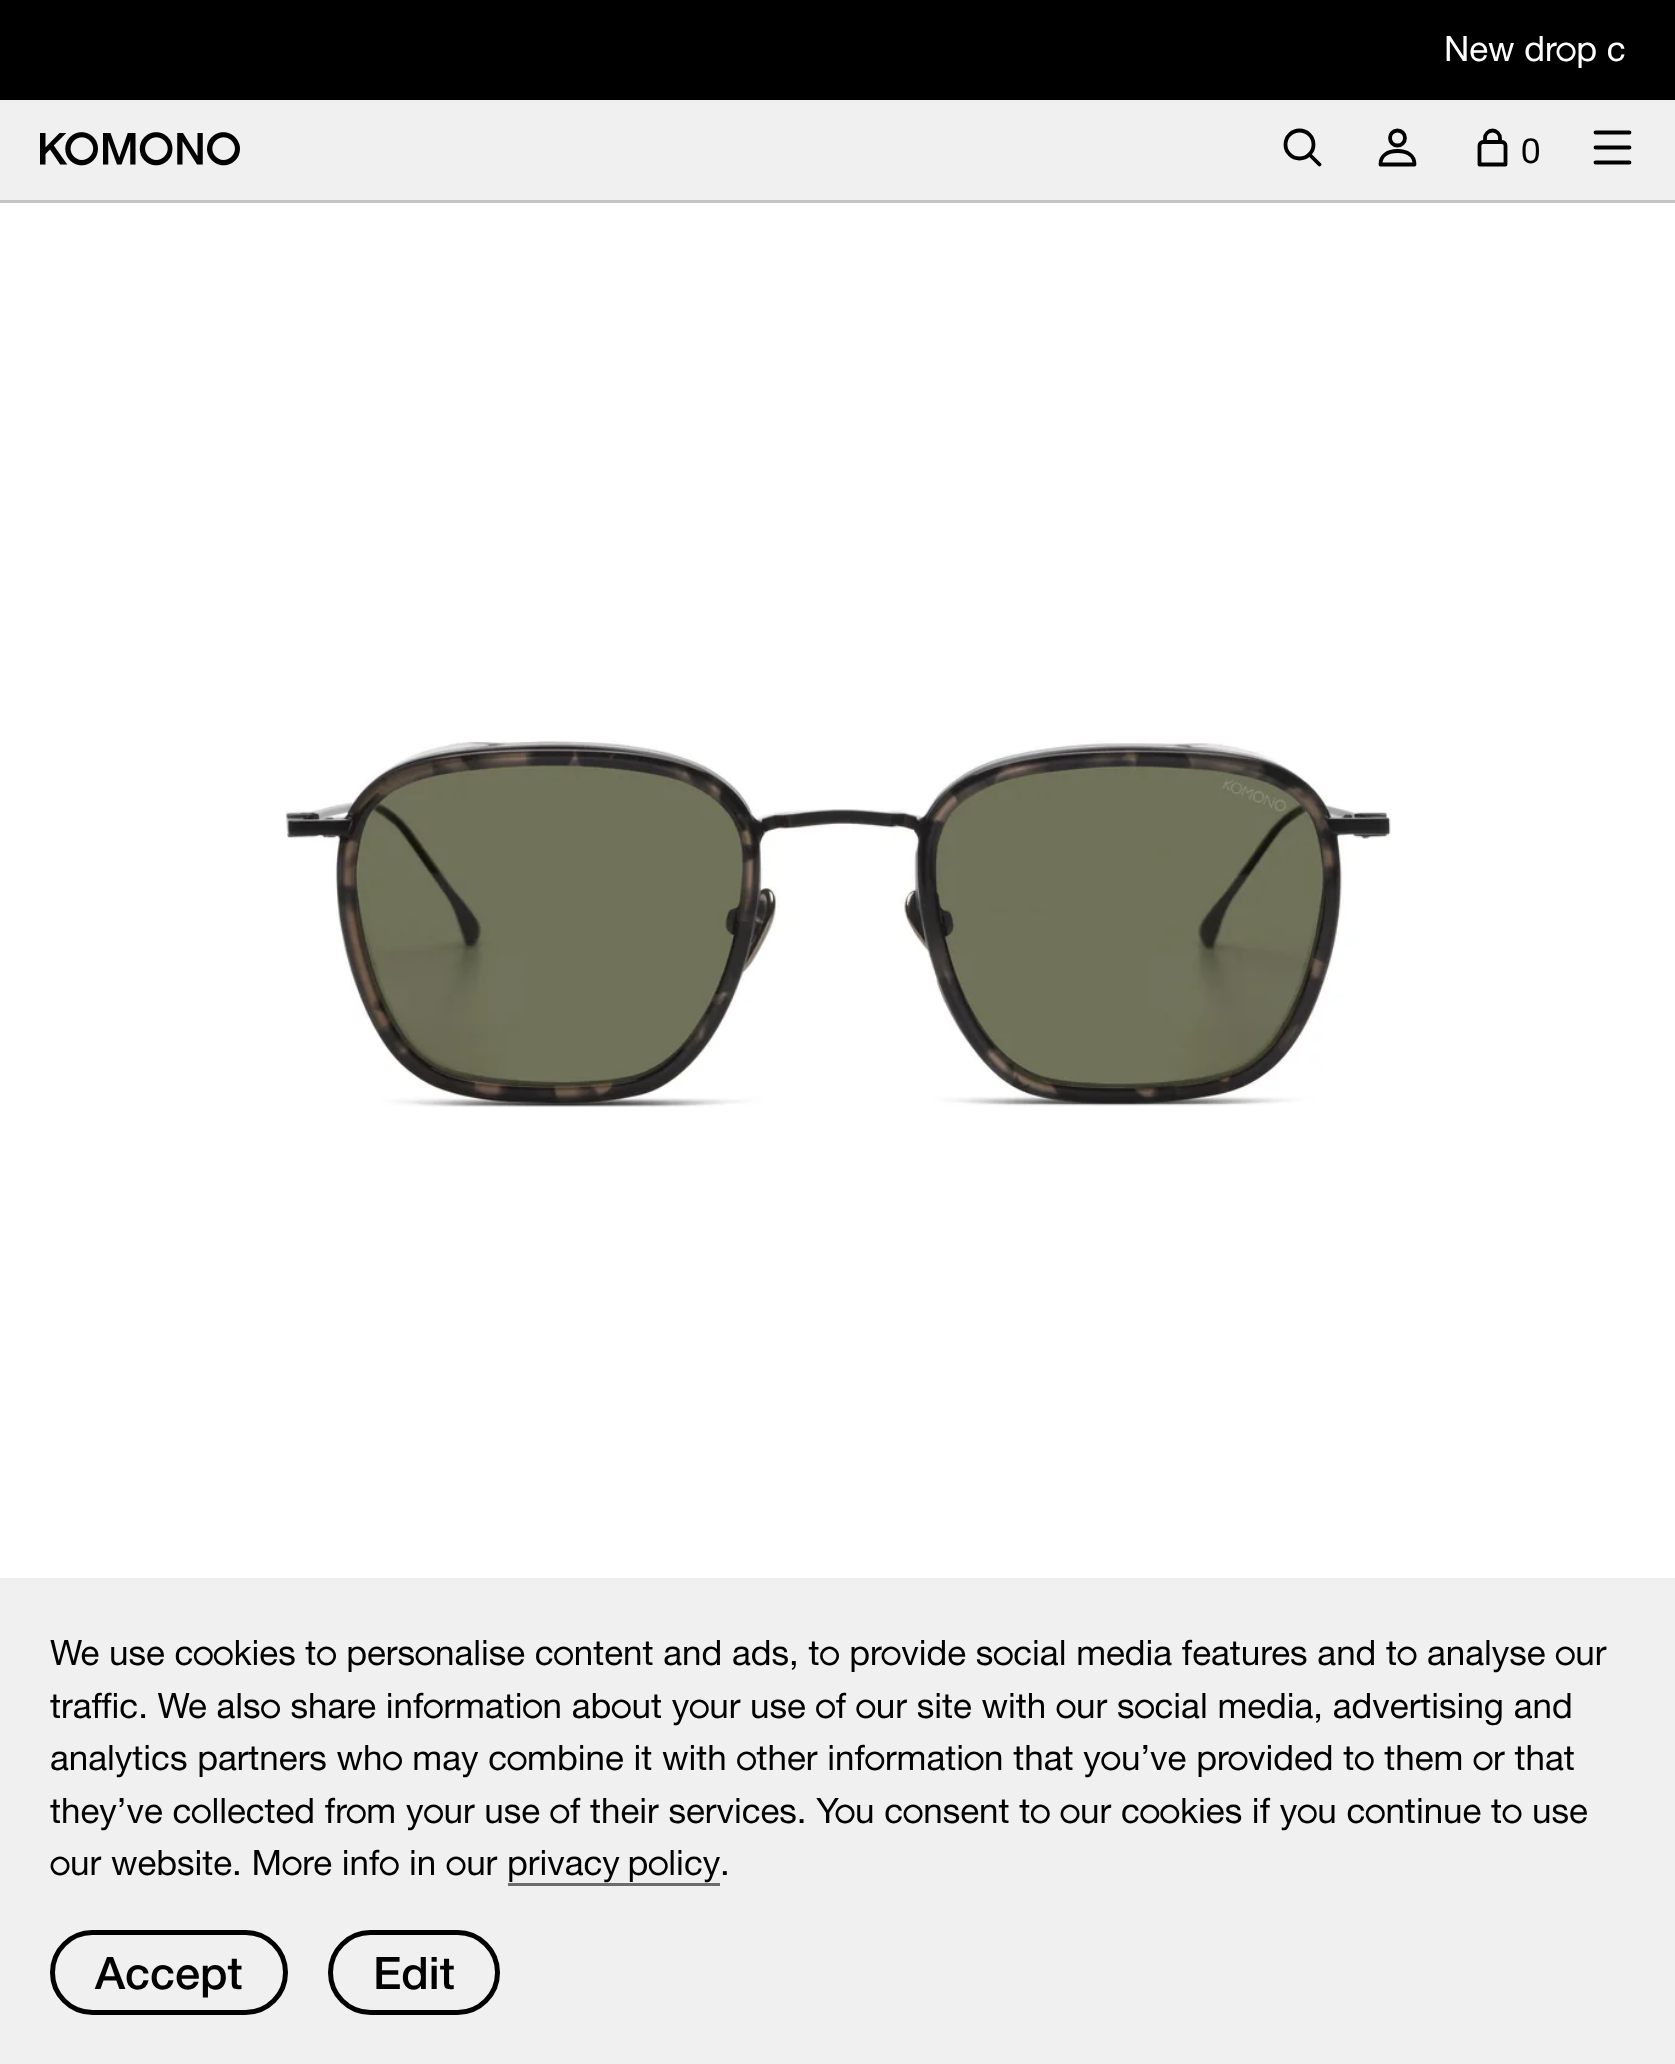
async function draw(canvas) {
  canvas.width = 1675
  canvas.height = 2064
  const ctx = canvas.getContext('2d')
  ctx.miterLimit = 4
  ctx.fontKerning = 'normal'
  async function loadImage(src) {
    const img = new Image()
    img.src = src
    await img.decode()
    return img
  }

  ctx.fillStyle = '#f0f0f0'
  ctx.fillRect(0, 0, 1675, 2064)
  ctx.fillStyle = '#000'
  ctx.fillRect(0, 0, 1675, 100)
  ctx.font = '35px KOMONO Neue'
  ctx.fillStyle = '#fff'
  ctx.fillText('New drop c', 1444, 61)
  ctx.fillStyle = '#c5c4c5'
  ctx.fillRect(0, 200, 1675, 3)
  ctx.drawImage(await loadImage('image0.png'), 40, 132, 200, 34)
  ctx.beginPath()
  ctx.arc(1299.5, 144.5, 14, 0, 2 * Math.PI)
  ctx.strokeStyle = '#000'
  ctx.lineWidth = 3.8
  ctx.stroke()
  ctx.beginPath()
  ctx.moveTo(1319.5, 164.5)
  ctx.lineTo(1309.5, 154.5)
  ctx.lineCap = 'round'
  ctx.lineJoin = 'round'
  ctx.stroke()
  ctx.beginPath()
  ctx.moveTo(1380.5, 164.5)
  ctx.bezierCurveTo(1380.5, 155, 1388, 151, 1397.5, 151)
  ctx.bezierCurveTo(1407, 151, 1414.5, 155, 1414.5, 164.5)
  ctx.closePath()
  ctx.stroke()
  ctx.beginPath()
  ctx.arc(1397.5, 138, 7.5, 0, 2 * Math.PI)
  ctx.stroke()
  ctx.beginPath()
  ctx.moveTo(1505.5, 164.5)
  ctx.lineTo(1479.5, 164.5)
  ctx.lineTo(1479.5, 145.5)
  ctx.bezierCurveTo(1479.5, 143.5, 1481, 142, 1483, 142)
  ctx.lineTo(1502, 142)
  ctx.bezierCurveTo(1504, 142, 1505.5, 143.5, 1505.5, 145.5)
  ctx.closePath()
  ctx.moveTo(1485, 142)
  ctx.lineTo(1485, 138)
  ctx.bezierCurveTo(1485, 134, 1488.5, 130.5, 1492.5, 130.5)
  ctx.bezierCurveTo(1496.5, 130.5, 1500, 134, 1500, 138)
  ctx.lineTo(1500, 142)
  ctx.stroke()
  ctx.fillStyle = '#000'
  ctx.fillText('0', 1521, 163)
  ctx.beginPath()
  ctx.moveTo(1595.5, 147.5)
  ctx.lineTo(1629.5, 147.5)
  ctx.moveTo(1595.5, 132.5)
  ctx.lineTo(1629.5, 132.5)
  ctx.moveTo(1595.5, 162.5)
  ctx.lineTo(1629.5, 162.5)
  ctx.stroke()
  ctx.fillStyle = '#fff'
  ctx.fillRect(0, 203, 1675, 1375)
  ctx.drawImage(await loadImage('image1.png'), 285, 740, 1106, 367)
  ctx.fillStyle = '#000'
  ctx.fillText('We use cookies to personalise content and ads, to provide social media features and to analyse our', 50, 1665)
  ctx.fillText('traffic. We also share information about your use of our site with our social media, advertising and', 50, 1718)
  ctx.fillText('analytics partners who may combine it with other information that you’ve provided to them or that', 50, 1770)
  ctx.fillText('they’ve collected from your use of their services. You consent to our cookies if you continue to use', 50, 1823)
  ctx.fillText('our website. More info in our', 50, 1875)
  ctx.wordSpacing = '-2px'
  ctx.fillText('privacy policy', 507, 1875)
  ctx.fillStyle = '#6c6c6c'
  ctx.fillRect(508, 1883, 212, 3)
  ctx.wordSpacing = '0px'
  ctx.fillStyle = '#000'
  ctx.fillText('.', 720, 1875)
  ctx.beginPath()
  ctx.roundRect(52.5, 1932.5, 233, 80, 40)
  ctx.lineWidth = 5
  ctx.lineJoin = 'miter'
  ctx.stroke()
  ctx.font = '500 45px KOMONO Neue'
  ctx.fillText('Accept', 95, 1989)
  ctx.beginPath()
  ctx.roundRect(330.5, 1932.5, 167, 80, 40)
  ctx.stroke()
  ctx.fillText('Edit', 373, 1989)
}

draw(document.querySelector('canvas'))
